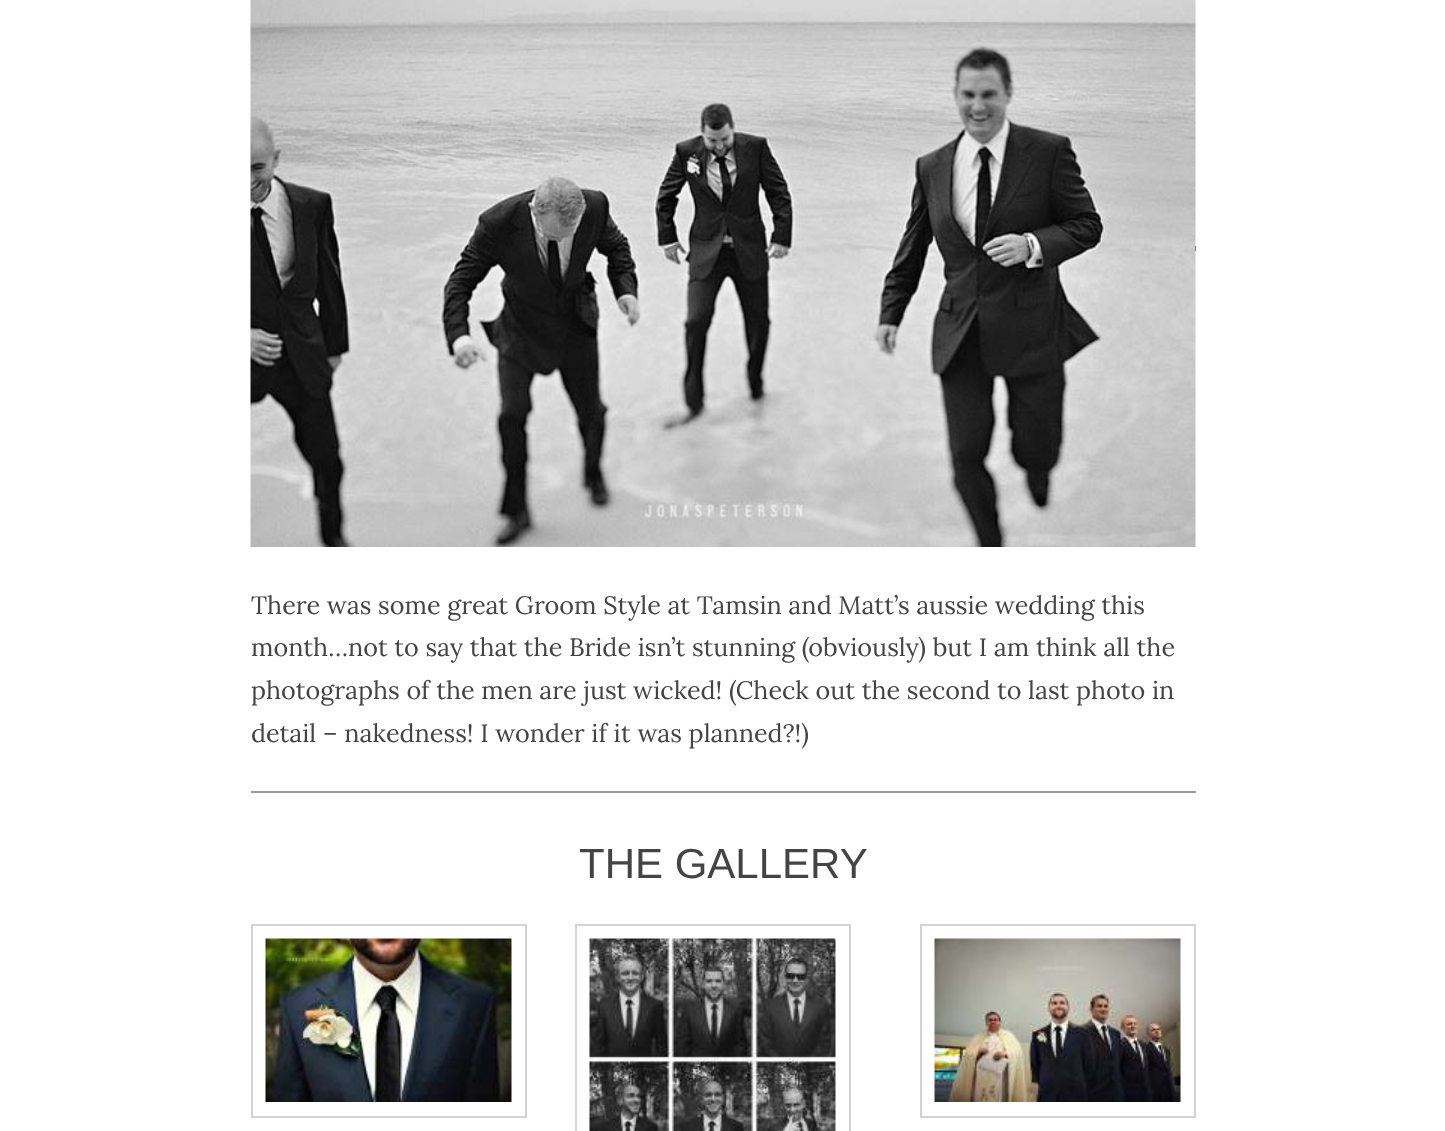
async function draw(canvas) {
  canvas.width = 1445
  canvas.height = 1131
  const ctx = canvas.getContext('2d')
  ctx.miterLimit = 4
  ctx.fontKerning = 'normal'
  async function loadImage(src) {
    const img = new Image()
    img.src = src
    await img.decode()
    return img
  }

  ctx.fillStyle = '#fff'
  ctx.fillRect(0, 0, 1445, 1131)
  ctx.fillStyle = '#610617'
  ctx.fillRect(1195, 246, 1, 5)
  ctx.drawImage(await loadImage('image0.png'), 250, 0, 946, 547)
  ctx.font = '25.2px Lora'
  ctx.fillStyle = '#444'
  ctx.fillText('There was some great Groom Style at Tamsin and Matt’s aussie wedding this', 251, 614)
  ctx.fillText('month…not to say that the Bride isn’t stunning (obviously) but I am think all the', 251, 656)
  ctx.fillText('photographs of the men are just wicked! (Check out the second to last photo in', 251, 699)
  ctx.fillText('detail – nakedness! I wonder if it was planned?!)', 251, 742)
  ctx.fillStyle = '#999'
  ctx.fillRect(251, 791, 945, 2)
  ctx.font = '42px Liberation Sans'
  ctx.fillStyle = '#444'
  ctx.fillText('THE GALLERY', 579, 878)
  ctx.strokeStyle = '#d6d2d3'
  ctx.lineWidth = 2
  ctx.strokeRect(252, 925, 274, 192)
  ctx.drawImage(await loadImage('image1.png'), 265, 938, 247, 164)
  ctx.strokeRect(576, 925, 274, 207)
  ctx.drawImage(await loadImage('image2.png'), 589, 938, 247, 193)
  ctx.strokeRect(921, 925, 274, 192)
  ctx.drawImage(await loadImage('image3.png'), 934, 938, 247, 164)
}

draw(document.querySelector('canvas'))
